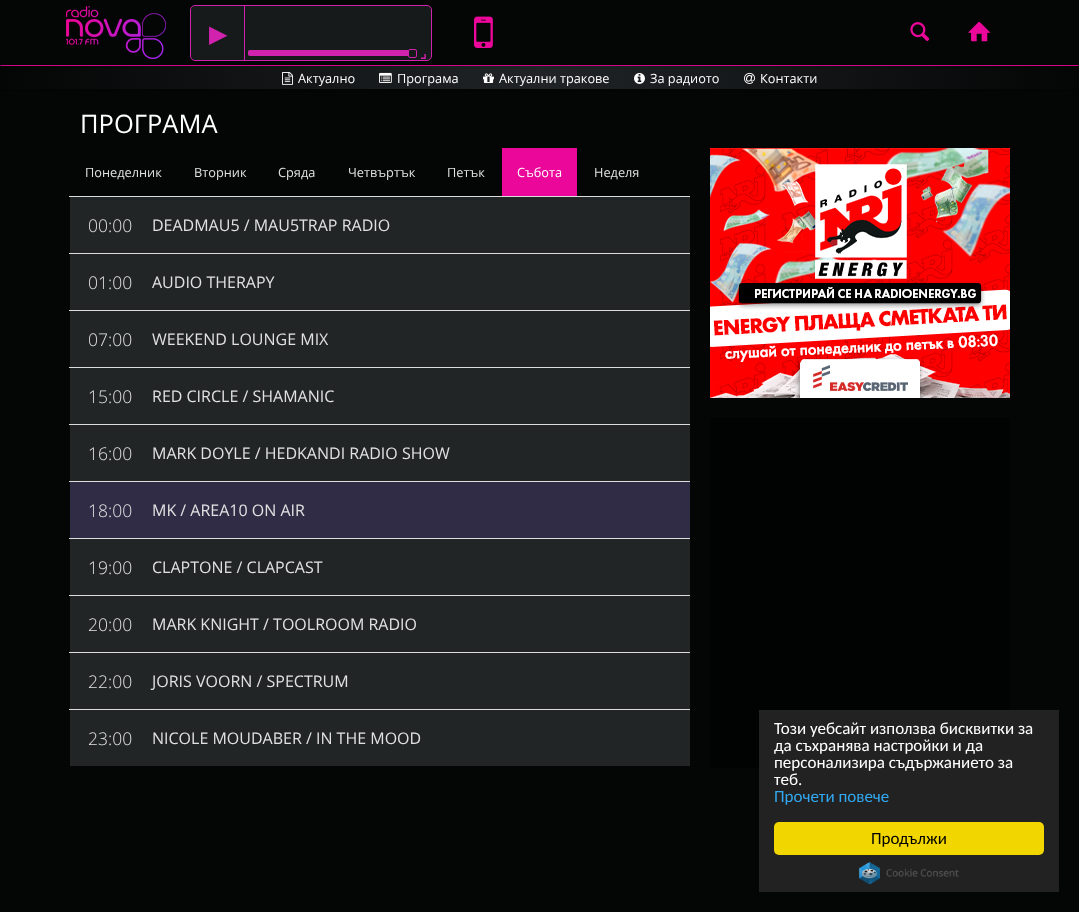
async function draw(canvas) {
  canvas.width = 1079
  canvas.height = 912
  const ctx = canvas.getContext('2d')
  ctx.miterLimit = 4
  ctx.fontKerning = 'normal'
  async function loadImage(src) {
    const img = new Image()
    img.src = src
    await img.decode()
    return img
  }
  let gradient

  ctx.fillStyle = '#040505'
  ctx.fillRect(0, 0, 1079, 912)
  ctx.save()
  ctx.beginPath()
  ctx.rect(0, 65, 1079, 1)
  ctx.clip()
  ctx.fillStyle = '#eb0799'
  ctx.filter = 'blur(1px)'
  ctx.beginPath()
  ctx.rect(0, 2, 1079, 65)
  ctx.fill()
  ctx.filter = 'none'
  ctx.restore()
  ctx.drawImage(await loadImage('image0.png'), 66, 6, 100, 53)
  ctx.fillStyle = '#171a1b'
  ctx.beginPath()
  ctx.roundRect(190.5, 5.5, 241, 55, 4.5)
  ctx.fill()
  ctx.strokeStyle = '#d122ae'
  ctx.stroke()
  ctx.beginPath()
  ctx.roundRect(191, 6, 54, 54, [5, 0, 0, 5])
  ctx.fill()
  ctx.fillStyle = '#d122ae'
  ctx.fillRect(244, 6, 1, 54)
  ctx.font = '24px DejaVu Sans'
  ctx.fillText('▶', 209, 42)
  ctx.fillStyle = '#282929'
  ctx.fillRect(248, 50, 169, 6)
  ctx.fillStyle = '#d122ae'
  ctx.beginPath()
  ctx.roundRect(248, 50, 164, 6, 2)
  ctx.fill()
  ctx.fillStyle = '#171a1b'
  ctx.beginPath()
  ctx.roundRect(408.5, 49.5, 8, 8, 1.5)
  ctx.fill()
  ctx.stroke()
  ctx.font = 'bold 14px DejaVu Sans'
  ctx.fillStyle = '#d122ae'
  ctx.fillText('⌟', 420, 58)
  ctx.drawImage(await loadImage('image1.png'), 474, 16, 19, 32)
  ctx.drawImage(await loadImage('image2.png'), 910, 22, 20, 20)
  ctx.drawImage(await loadImage('image3.png'), 968, 21, 22, 21)
  ctx.fillStyle = '#00000033'
  ctx.filter = 'blur(1px)'
  ctx.beginPath()
  ctx.rect(0, 67, 1079, 23)
  ctx.fill()
  ctx.filter = 'none'
  gradient = ctx.createLinearGradient(0, 78, 1079, 77)
  gradient.addColorStop(0, '#040505')
  gradient.addColorStop(0.5, '#202426')
  gradient.addColorStop(1, '#040505')
  ctx.fillStyle = gradient
  ctx.fillRect(0, 66, 1079, 23)
  ctx.drawImage(await loadImage('image4.png'), 282, 72, 11, 13)
  ctx.font = '12.75px Open Sans'
  ctx.fillStyle = '#fff'
  ctx.fillText('Актуално', 298, 83)
  ctx.drawImage(await loadImage('image5.png'), 379, 72, 13, 11)
  ctx.fillText('Програма', 397, 83)
  ctx.drawImage(await loadImage('image6.png'), 483, 73, 11, 10)
  ctx.fillText('Актуални тракове', 499, 83)
  ctx.drawImage(await loadImage('image7.png'), 634, 72, 11, 12)
  ctx.fillText('За радиото', 650, 83)
  ctx.drawImage(await loadImage('image8.png'), 744, 72, 11, 12)
  ctx.fillText('Контакти', 760, 83)
  ctx.font = '25.5px Open Sans'
  ctx.fillText('ПРОГРАМА', 80, 133)
  ctx.font = '12.75px Open Sans'
  ctx.fillStyle = '#e1e1e1'
  ctx.fillText('Понеделник', 85, 177)
  ctx.fillText('Вторник', 194, 177)
  ctx.fillText('Сряда', 278, 177)
  ctx.fillText('Четвъртък', 348, 177)
  ctx.fillText('Петък', 447, 177)
  ctx.fillStyle = '#eb0799'
  ctx.fillRect(502, 148, 75, 48)
  ctx.fillStyle = '#fff'
  ctx.fillText('Събота', 517, 177)
  ctx.fillStyle = '#e1e1e1'
  ctx.fillText('Неделя', 594, 177)
  ctx.fillStyle = '#212525'
  ctx.fillRect(70, 197, 620, 569)
  ctx.font = '300 17.5px Open Sans'
  ctx.fillStyle = '#e1e1e1'
  ctx.fillText('00:00', 88, 232)
  ctx.fillStyle = '#ddd'
  ctx.fillRect(69, 196, 621, 1)
  ctx.font = '16px Open Sans'
  ctx.fillStyle = '#e1e1e1'
  ctx.fillText('DEADMAU5 / MAU5TRAP RADIO', 152, 231)
  ctx.font = '300 17.5px Open Sans'
  ctx.fillText('01:00', 88, 289)
  ctx.fillStyle = '#ddd'
  ctx.fillRect(69, 253, 621, 1)
  ctx.font = '16px Open Sans'
  ctx.fillStyle = '#e1e1e1'
  ctx.fillText('AUDIO THERAPY', 152, 288)
  ctx.font = '300 17.5px Open Sans'
  ctx.fillText('07:00', 88, 346)
  ctx.fillStyle = '#ddd'
  ctx.fillRect(69, 310, 621, 1)
  ctx.font = '16px Open Sans'
  ctx.fillStyle = '#e1e1e1'
  ctx.fillText('WEEKEND LOUNGE MIX', 152, 345)
  ctx.font = '300 17.5px Open Sans'
  ctx.fillText('15:00', 88, 403)
  ctx.fillStyle = '#ddd'
  ctx.fillRect(69, 367, 621, 1)
  ctx.font = '16px Open Sans'
  ctx.fillStyle = '#e1e1e1'
  ctx.fillText('RED CIRCLE / SHAMANIC', 152, 402)
  ctx.font = '300 17.5px Open Sans'
  ctx.fillText('16:00', 88, 460)
  ctx.fillStyle = '#ddd'
  ctx.fillRect(69, 424, 621, 1)
  ctx.font = '16px Open Sans'
  ctx.fillStyle = '#e1e1e1'
  ctx.fillText('MARK DOYLE / HEDKANDI RADIO SHOW', 152, 459)
  ctx.fillStyle = '#312c46'
  ctx.fillRect(70, 482, 620, 56)
  ctx.font = '300 17.5px Open Sans'
  ctx.fillStyle = '#e1e1e1'
  ctx.fillText('18:00', 88, 517)
  ctx.fillStyle = '#ddd'
  ctx.fillRect(69, 481, 621, 1)
  ctx.font = '16px Open Sans'
  ctx.fillStyle = '#e1e1e1'
  ctx.fillText('MK / AREA10 ON AIR', 152, 516)
  ctx.font = '300 17.5px Open Sans'
  ctx.fillText('19:00', 88, 574)
  ctx.fillStyle = '#ddd'
  ctx.fillRect(69, 538, 621, 1)
  ctx.font = '16px Open Sans'
  ctx.fillStyle = '#e1e1e1'
  ctx.fillText('CLAPTONE / CLAPCAST', 152, 573)
  ctx.font = '300 17.5px Open Sans'
  ctx.fillText('20:00', 88, 631)
  ctx.fillStyle = '#ddd'
  ctx.fillRect(69, 595, 621, 1)
  ctx.font = '16px Open Sans'
  ctx.fillStyle = '#e1e1e1'
  ctx.fillText('MARK KNIGHT / TOOLROOM RADIO', 152, 630)
  ctx.font = '300 17.5px Open Sans'
  ctx.fillText('22:00', 88, 688)
  ctx.fillStyle = '#ddd'
  ctx.fillRect(69, 652, 621, 1)
  ctx.font = '16px Open Sans'
  ctx.fillStyle = '#e1e1e1'
  ctx.fillText('JORIS VOORN / SPECTRUM', 152, 687)
  ctx.font = '300 17.5px Open Sans'
  ctx.fillText('23:00', 88, 745)
  ctx.fillStyle = '#ddd'
  ctx.fillRect(69, 709, 621, 1)
  ctx.font = '16px Open Sans'
  ctx.fillStyle = '#e1e1e1'
  ctx.fillText('NICOLE MOUDABER / IN THE MOOD', 152, 744)
  ctx.drawImage(await loadImage('image9.png'), 710, 148, 300, 250)
  ctx.fillStyle = '#010202'
  ctx.fillRect(710, 418, 300, 350)
  ctx.fillStyle = '#222'
  ctx.fillRect(759, 710, 300, 182)
  ctx.font = '17px Carlito'
  ctx.fillStyle = '#fff'
  ctx.fillText('Този уебсайт използва бисквитки за', 774, 734)
  ctx.fillText('да съхранява настройки и да', 774, 751)
  ctx.fillText('персонализира съдържанието за', 774, 768)
  ctx.fillText('теб.', 774, 785)
  ctx.fillStyle = '#31a8f0'
  ctx.fillText('Прочети повече', 774, 802)
  ctx.fillStyle = '#f1d600'
  ctx.beginPath()
  ctx.roundRect(774, 822, 270, 33, 5)
  ctx.fill()
  ctx.fillStyle = '#000'
  ctx.fillText('Продължи', 871, 844)
  ctx.drawImage(await loadImage('image10.png'), 859, 862, 100, 22)
}

draw(document.querySelector('canvas'))
